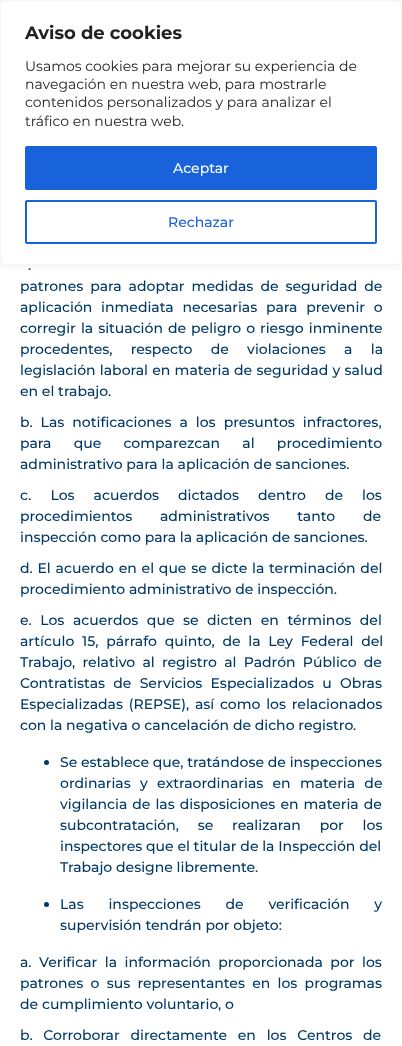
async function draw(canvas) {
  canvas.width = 402
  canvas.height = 1046
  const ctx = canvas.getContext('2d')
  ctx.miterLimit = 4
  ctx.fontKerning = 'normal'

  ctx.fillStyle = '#fff'
  ctx.fillRect(0, 0, 402, 1046)
  ctx.fillStyle = '#acabab4d'
  ctx.filter = 'blur(5px)'
  ctx.beginPath()
  ctx.roundRect(0, -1, 402, 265, 6)
  ctx.fill()
  ctx.filter = 'none'
  ctx.fillStyle = '#fff'
  ctx.beginPath()
  ctx.roundRect(0.5, 0.5, 401, 264, 5.5)
  ctx.fill()
  ctx.strokeStyle = '#f4f4f4'
  ctx.stroke()
  ctx.font = 'bold 18px Montserrat'
  ctx.fillStyle = '#212121'
  ctx.fillText('Aviso de cookies', 25, 39)
  ctx.font = '14px Montserrat'
  ctx.fillText('Usamos cookies para mejorar su experiencia de', 25, 71)
  ctx.fillText('navegación en nuestra web, para mostrarle', 25, 89)
  ctx.fillText('contenidos personalizados y para analizar el', 25, 107)
  ctx.fillText('tráfico en nuestra web.', 25, 126)
  ctx.fillStyle = '#1863dc'
  ctx.beginPath()
  ctx.roundRect(26, 147, 350, 42, 1)
  ctx.fill()
  ctx.strokeStyle = '#1863dc'
  ctx.lineWidth = 2
  ctx.stroke()
  ctx.font = '500 14px Montserrat'
  ctx.fillStyle = '#fff'
  ctx.fillText('Aceptar', 173, 173)
  ctx.beginPath()
  ctx.roundRect(26, 201, 350, 42, 1)
  ctx.stroke()
  ctx.fillStyle = '#1863dc'
  ctx.fillText('Rechazar', 168, 227)
  ctx.wordSpacing = '2px'
  ctx.fillStyle = '#003865'
  ctx.fillText('.', 28, 270)
  ctx.wordSpacing = '3.25px'
  ctx.fillText('patrones para adoptar medidas de seguridad de', 20, 291)
  ctx.wordSpacing = '5px'
  ctx.fillText('aplicación inmediata necesarias para prevenir o', 20, 312)
  ctx.wordSpacing = '1.25px'
  ctx.fillText('corregir la situación de peligro o riesgo inminente', 20, 333)
  ctx.wordSpacing = '14.5px'
  ctx.fillText('procedentes, respecto de violaciones a la', 20, 354)
  ctx.wordSpacing = '0.5px'
  ctx.fillText('legislación laboral en materia de seguridad y salud', 20, 375)
  ctx.wordSpacing = '0px'
  ctx.fillText('en el trabajo.', 20, 396)
  ctx.wordSpacing = '4.25px'
  ctx.fillText('b. Las notificaciones a los presuntos infractores,', 20, 427)
  ctx.wordSpacing = '18.5px'
  ctx.fillText('para que comparezcan al procedimiento', 20, 448)
  ctx.wordSpacing = '0px'
  ctx.fillText('administrativo para la aplicación de sanciones.', 20, 469)
  ctx.wordSpacing = '15.25px'
  ctx.fillText('c. Los acuerdos dictados dentro de los', 20, 500)
  ctx.wordSpacing = '24px'
  ctx.fillText('procedimientos administrativos tanto de', 20, 521)
  ctx.wordSpacing = '0px'
  ctx.fillText('inspección como para la aplicación de sanciones.', 20, 542)
  ctx.wordSpacing = '1px'
  ctx.fillText('d. El acuerdo en el que se dicte la terminación del', 20, 573)
  ctx.wordSpacing = '0px'
  ctx.fillText('procedimiento administrativo de inspección.', 20, 594)
  ctx.wordSpacing = '4.75px'
  ctx.fillText('e. Los acuerdos que se dicten en términos del', 20, 625)
  ctx.wordSpacing = '4px'
  ctx.fillText('artículo 15, párrafo quinto, de la Ley Federal del', 20, 646)
  ctx.wordSpacing = '3.5px'
  ctx.fillText('Trabajo, relativo al registro al Padrón Público de', 20, 667)
  ctx.wordSpacing = '4.5px'
  ctx.fillText('Contratistas de Servicios Especializados u Obras', 20, 688)
  ctx.wordSpacing = '2px'
  ctx.fillText('Especializadas (REPSE), así como los relacionados', 20, 709)
  ctx.wordSpacing = '0px'
  ctx.fillText('con la negativa o cancelación de dicho registro.', 20, 730)
  ctx.beginPath()
  ctx.arc(46.5, 762.5, 2.5, 0, 2 * Math.PI)
  ctx.fill()
  ctx.fillText('Se establece que, tratándose de inspecciones', 60, 767)
  ctx.wordSpacing = '5.5px'
  ctx.fillText('ordinarias y extraordinarias en materia de', 60, 788)
  ctx.wordSpacing = '1.25px'
  ctx.fillText('vigilancia de las disposiciones en materia de', 60, 809)
  ctx.wordSpacing = '15px'
  ctx.fillText('subcontratación, se realizaran por los', 60, 830)
  ctx.wordSpacing = '0px'
  ctx.fillText('inspectores que el titular de la Inspección del', 60, 851)
  ctx.fillText('Trabajo designe libremente.', 60, 872)
  ctx.beginPath()
  ctx.arc(46.5, 904.5, 2.5, 0, 2 * Math.PI)
  ctx.fill()
  ctx.wordSpacing = '21px'
  ctx.fillText('Las inspecciones de verificación y', 60, 909)
  ctx.wordSpacing = '0px'
  ctx.fillText('supervisión tendrán por objeto:', 60, 930)
  ctx.wordSpacing = '3.75px'
  ctx.fillText('a. Verificar la información proporcionada por los', 20, 967)
  ctx.wordSpacing = '3.5px'
  ctx.fillText('patrones o sus representantes en los programas', 20, 988)
  ctx.wordSpacing = '0px'
  ctx.fillText('de cumplimiento voluntario, o', 20, 1009)
  ctx.wordSpacing = '7px'
  ctx.fillText('b. Corroborar directamente en los Centros de', 20, 1040)
}

draw(document.querySelector('canvas'))
